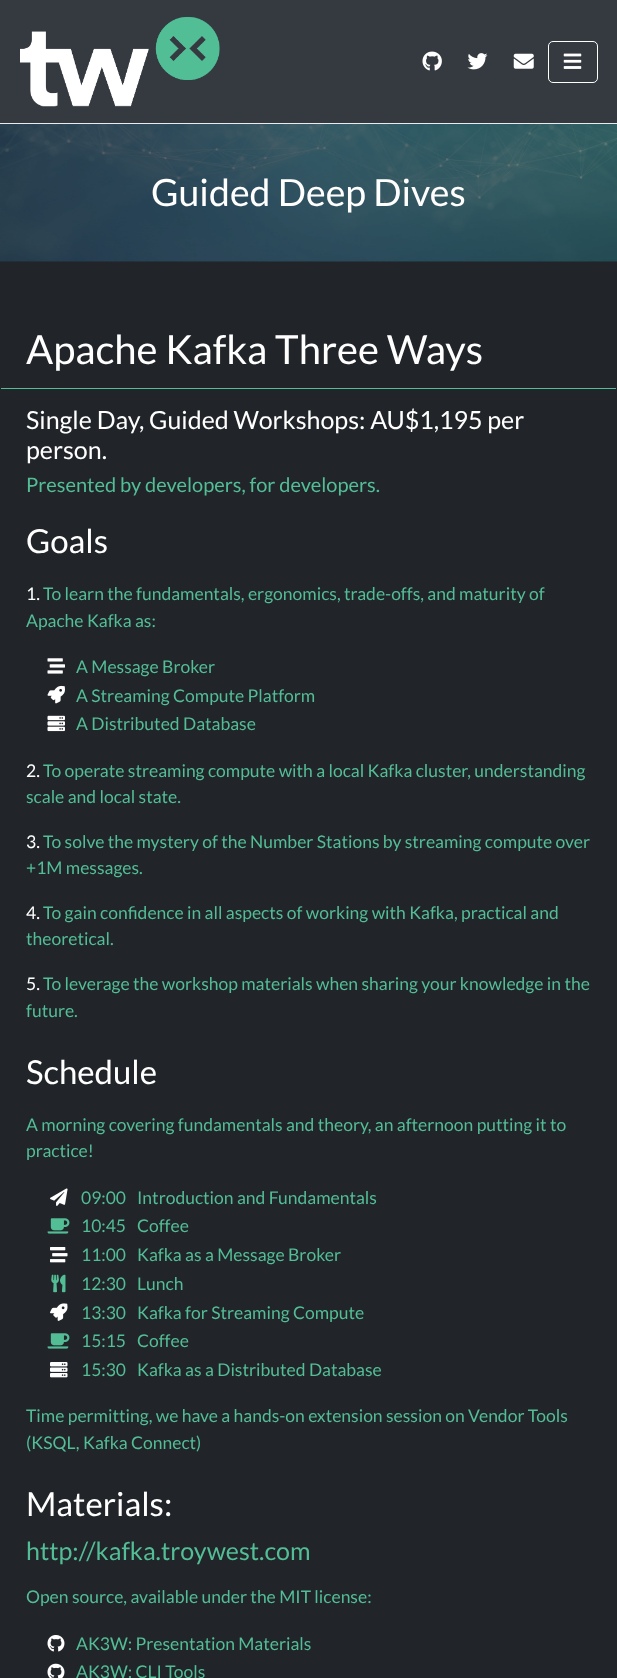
async function draw(canvas) {
  canvas.width = 617
  canvas.height = 1678
  const ctx = canvas.getContext('2d')
  ctx.miterLimit = 4
  ctx.fontKerning = 'normal'
  async function loadImage(src) {
    const img = new Image()
    img.src = src
    await img.decode()
    return img
  }

  ctx.fillStyle = '#212529'
  ctx.fillRect(0, 0, 617, 1678)
  ctx.fillStyle = '#343a40'
  ctx.fillRect(0, 0, 617, 123)
  ctx.fillStyle = '#e9ecef'
  ctx.fillRect(0, 123, 617, 1)
  ctx.drawImage(await loadImage('image0.png'), 20, 16, 200, 91)
  ctx.drawImage(await loadImage('image1.png'), 422, 51, 20, 20)
  ctx.drawImage(await loadImage('image2.png'), 467, 53, 21, 17)
  ctx.drawImage(await loadImage('image3.png'), 513, 53, 21, 16)
  ctx.beginPath()
  ctx.roundRect(548.5, 41.5, 49, 41, 4.5)
  ctx.strokeStyle = '#fff'
  ctx.stroke()
  ctx.drawImage(await loadImage('image4.png'), 563, 53, 19, 16)
  ctx.drawImage(await loadImage('image5.png'), 0, 124, 617, 138)
  ctx.font = '37.5px Lato'
  ctx.fillStyle = '#fff'
  ctx.fillText('Guided Deep Dives', 151, 206)
  ctx.fillStyle = '#53bd95'
  ctx.fillRect(1, 388, 615, 1)
  ctx.font = '40px Lato'
  ctx.fillStyle = '#fff'
  ctx.fillText('Apache Kafka Three Ways', 26, 364)
  ctx.font = '25px Lato'
  ctx.fillText('Single Day, Guided Workshops: AU$1,195 per', 26, 429)
  ctx.fillText('person.', 26, 459)
  ctx.font = '20px Lato'
  ctx.fillStyle = '#53bd95'
  ctx.fillText('Presented by developers, for developers.', 26, 492)
  ctx.font = '33px Lato'
  ctx.fillStyle = '#fff'
  ctx.fillText('Goals', 26, 553)
  ctx.font = '17.5px Lato'
  ctx.fillText('1.', 26, 600)
  ctx.fillStyle = '#53bd95'
  ctx.fillText('To learn the fundamentals, ergonomics, trade-offs, and maturity of', 43, 600)
  ctx.fillText('Apache Kafka as:', 26, 627)
  ctx.drawImage(await loadImage('image6.png'), 47, 658, 18, 16)
  ctx.fillText('A Message Broker', 76, 673)
  ctx.drawImage(await loadImage('image7.png'), 47, 685, 18, 19)
  ctx.fillText('A Streaming Compute Platform', 76, 702)
  ctx.drawImage(await loadImage('image8.png'), 47, 715, 18, 17)
  ctx.fillText('A Distributed Database', 76, 730)
  ctx.fillStyle = '#fff'
  ctx.fillText('2.', 26, 777)
  ctx.fillStyle = '#53bd95'
  ctx.fillText('To operate streaming compute with a local Kafka cluster, understanding', 43, 777)
  ctx.fillText('scale and local state.', 26, 803)
  ctx.fillStyle = '#fff'
  ctx.fillText('3.', 26, 848)
  ctx.fillStyle = '#53bd95'
  ctx.fillText('To solve the mystery of the Number Stations by streaming compute over', 43, 848)
  ctx.fillText('+1M messages.', 26, 874)
  ctx.fillStyle = '#fff'
  ctx.fillText('4.', 26, 919)
  ctx.fillStyle = '#53bd95'
  ctx.fillText('To gain confidence in all aspects of working with Kafka, practical and', 43, 919)
  ctx.fillText('theoretical.', 26, 945)
  ctx.fillStyle = '#fff'
  ctx.fillText('5.', 26, 990)
  ctx.fillStyle = '#53bd95'
  ctx.fillText('To leverage the workshop materials when sharing your knowledge in the', 43, 990)
  ctx.fillText('future.', 26, 1017)
  ctx.font = '33px Lato'
  ctx.fillStyle = '#fff'
  ctx.fillText('Schedule', 26, 1084)
  ctx.font = '17.5px Lato'
  ctx.fillStyle = '#53bd95'
  ctx.fillText('A morning covering fundamentals and theory, an afternoon putting it to', 26, 1131)
  ctx.fillText('practice!', 26, 1157)
  ctx.drawImage(await loadImage('image9.png'), 50, 1188, 18, 18)
  ctx.fillText('09:00', 81, 1204)
  ctx.fillText('Introduction and Fundamentals', 137, 1204)
  ctx.drawImage(await loadImage('image10.png'), 47, 1218, 23, 16)
  ctx.fillText('10:45', 81, 1232)
  ctx.fillText('Coffee', 137, 1232)
  ctx.drawImage(await loadImage('image11.png'), 50, 1247, 18, 16)
  ctx.fillText('11:00', 81, 1261)
  ctx.fillText('Kafka as a Message Broker', 137, 1261)
  ctx.drawImage(await loadImage('image12.png'), 51, 1274, 15, 19)
  ctx.fillText('12:30', 81, 1290)
  ctx.fillText('Lunch', 137, 1290)
  ctx.drawImage(await loadImage('image13.png'), 50, 1303, 18, 18)
  ctx.fillText('13:30', 81, 1319)
  ctx.fillText('Kafka for Streaming Compute', 137, 1319)
  ctx.drawImage(await loadImage('image10.png'), 47, 1333, 23, 16)
  ctx.fillText('15:15', 81, 1347)
  ctx.fillText('Coffee', 137, 1347)
  ctx.drawImage(await loadImage('image14.png'), 50, 1362, 18, 16)
  ctx.fillText('15:30', 81, 1376)
  ctx.fillText('Kafka as a Distributed Database', 137, 1376)
  ctx.fillText('Time permitting, we have a hands-on extension session on Vendor Tools', 26, 1422)
  ctx.fillText('(KSQL, Kafka Connect)', 26, 1449)
  ctx.font = '33px Lato'
  ctx.fillStyle = '#fff'
  ctx.fillText('Materials:', 26, 1516)
  ctx.font = '25px Lato'
  ctx.fillStyle = '#53bd95'
  ctx.fillText('http://kafka.troywest.com', 26, 1560)
  ctx.font = '17.5px Lato'
  ctx.fillText('Open source, available under the MIT license:', 26, 1603)
  ctx.drawImage(await loadImage('image15.png'), 47, 1635, 18, 17)
  ctx.fillText('AK3W: Presentation Materials', 76, 1650)
  ctx.drawImage(await loadImage('image16.png'), 47, 1663, 18, 15)
  ctx.fillText('AK3W: CLI Tools', 76, 1678)
}

draw(document.querySelector('canvas'))
